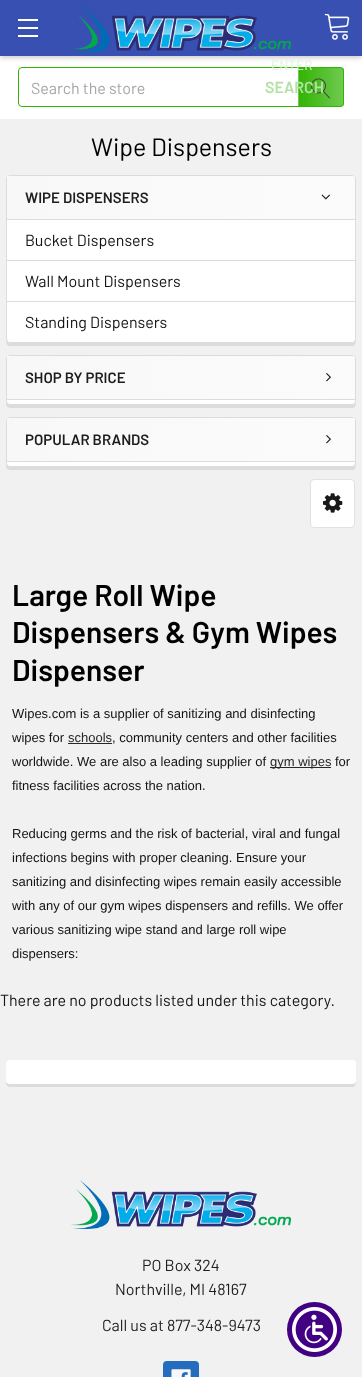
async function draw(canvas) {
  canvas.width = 362
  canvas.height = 1377
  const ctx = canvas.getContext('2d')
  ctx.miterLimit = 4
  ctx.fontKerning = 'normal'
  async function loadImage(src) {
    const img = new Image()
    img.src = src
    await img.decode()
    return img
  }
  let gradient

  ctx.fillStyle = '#f1f1f2'
  ctx.fillRect(0, 0, 362, 1377)
  ctx.fillStyle = '#fff'
  ctx.fillRect(0, 56, 362, 63)
  ctx.fillStyle = '#00000033'
  ctx.filter = 'blur(2.5px)'
  ctx.beginPath()
  ctx.rect(0, 2, 362, 56)
  ctx.fill()
  ctx.filter = 'none'
  ctx.fillStyle = '#3750b2'
  ctx.fillRect(0, 1, 362, 55)
  ctx.fillStyle = '#384fb2'
  ctx.fillRect(0, 0, 362, 1)
  ctx.fillStyle = '#fff'
  ctx.fillRect(18, 27, 20, 2)
  ctx.fillRect(18, 19, 20, 2)
  ctx.fillRect(18, 35, 20, 2)
  ctx.drawImage(await loadImage('image0.png'), 71, 4, 220, 49)
  ctx.drawImage(await loadImage('image1.png'), 324, 14, 26, 26)
  ctx.beginPath()
  ctx.roundRect(18.5, 67.5, 325, 39, 3.5)
  ctx.strokeStyle = '#32b404'
  ctx.stroke()
  gradient = ctx.createLinearGradient(255, 87, 299, 87)
  gradient.addColorStop(0, '#32b404')
  gradient.addColorStop(1, '#32b404b3')
  ctx.fillStyle = gradient
  ctx.fillRect(298, 67, 1, 40)
  ctx.save()
  ctx.beginPath()
  ctx.roundRect(298, 67, 46, 40, [0, 4, 4, 0])
  ctx.clip()
  gradient = ctx.createLinearGradient(299, 87, 343, 87)
  gradient.addColorStop(0, '#32b404')
  gradient.addColorStop(1, '#32b404b3')
  ctx.fillStyle = gradient
  ctx.fillRect(299, 67, 44, 40)
  ctx.restore()
  ctx.font = '13.5px Barlow'
  ctx.fillStyle = '#e2f3dc'
  ctx.fillText('ENTER', 271, 70)
  ctx.fillStyle = '#420083'
  ctx.beginPath()
  ctx.arc(314.5, 1329.5, 27.5, 0, 2 * Math.PI)
  ctx.fill()
  ctx.drawImage(await loadImage('image2.png'), 292, 1307, 45, 45)
  ctx.save()
  ctx.beginPath()
  ctx.roundRect(298, 67, 46, 40, [0, 4, 4, 0])
  ctx.clip()
  gradient = ctx.createLinearGradient(343, 87, 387, 87)
  gradient.addColorStop(0, '#32b404')
  gradient.addColorStop(1, '#32b404b3')
  ctx.fillStyle = gradient
  ctx.fillRect(343, 67, 1, 40)
  ctx.restore()
  ctx.drawImage(await loadImage('image3.png'), 311, 78, 19, 21)
  ctx.font = '16px Barlow'
  ctx.fillStyle = '#a5a5a5'
  ctx.fillText('Search the store', 31, 94)
  ctx.font = '600 16px Barlow'
  ctx.fillStyle = '#b3e0a3'
  ctx.fillText('SEARCH', 265, 93)
  ctx.font = '25px Barlow'
  ctx.fillStyle = '#000'
  ctx.fillText('Wipe Dispensers', 91, 156)
  ctx.fillStyle = '#dcdcdc'
  ctx.beginPath()
  ctx.moveTo(6, 339)
  ctx.bezierCurveTo(6, 342, 6, 346, 10, 346)
  ctx.lineTo(353, 346)
  ctx.bezierCurveTo(356, 345, 356, 342, 356, 339)
  ctx.bezierCurveTo(356, 341, 354, 343, 352, 343)
  ctx.lineTo(10, 343)
  ctx.bezierCurveTo(8, 343, 6, 341, 6, 339)
  ctx.closePath()
  ctx.fill()
  ctx.fillStyle = '#fff'
  ctx.beginPath()
  ctx.roundRect(6.5, 175.5, 349, 167, 3.5)
  ctx.fill()
  ctx.strokeStyle = '#dcdcdc'
  ctx.stroke()
  gradient = ctx.createLinearGradient(7, 198, 355, 198)
  gradient.addColorStop(0, '#f8f8f8')
  gradient.addColorStop(1, '#f8f8f899')
  ctx.fillStyle = gradient
  ctx.fillRect(7, 176, 348, 43)
  ctx.fillStyle = '#dcdcdc'
  ctx.fillRect(7, 219, 348, 1)
  ctx.font = '600 15px Barlow'
  ctx.fillStyle = '#1d1d1d'
  ctx.fillText('WIPE DISPENSERS', 25, 203)
  ctx.drawImage(await loadImage('image4.png'), 321, 194, 9, 6)
  ctx.font = '16px Barlow'
  ctx.fillStyle = '#131313'
  ctx.fillText('Bucket Dispensers', 25, 246)
  ctx.fillStyle = '#dcdcdc'
  ctx.fillRect(7, 260, 348, 1)
  ctx.fillStyle = '#131313'
  ctx.fillText('Wall Mount Dispensers', 25, 287)
  ctx.fillStyle = '#dcdcdc'
  ctx.fillRect(7, 301, 348, 1)
  ctx.fillStyle = '#131313'
  ctx.fillText('Standing Dispensers', 25, 328)
  ctx.fillStyle = '#dcdcdc'
  ctx.beginPath()
  ctx.moveTo(6, 401)
  ctx.bezierCurveTo(6, 404, 6, 408, 10, 408)
  ctx.lineTo(353, 408)
  ctx.bezierCurveTo(356, 407, 356, 404, 356, 401)
  ctx.bezierCurveTo(356, 403, 354, 405, 352, 405)
  ctx.lineTo(10, 405)
  ctx.bezierCurveTo(8, 405, 6, 403, 6, 401)
  ctx.closePath()
  ctx.fill()
  ctx.fillStyle = '#fff'
  ctx.beginPath()
  ctx.roundRect(6.5, 355.5, 349, 49, 3.5)
  ctx.fill()
  ctx.stroke()
  gradient = ctx.createLinearGradient(7, 378, 355, 378)
  gradient.addColorStop(0, '#f8f8f8')
  gradient.addColorStop(1, '#f8f8f899')
  ctx.fillStyle = gradient
  ctx.fillRect(7, 356, 348, 43)
  ctx.fillStyle = '#dcdcdc'
  ctx.fillRect(7, 399, 348, 1)
  ctx.font = '600 15px Barlow'
  ctx.fillStyle = '#1d1d1d'
  ctx.fillText('SHOP BY PRICE', 25, 383)
  ctx.drawImage(await loadImage('image5.png'), 326, 373, 5, 9)
  ctx.fillStyle = '#dcdcdc'
  ctx.beginPath()
  ctx.moveTo(6, 463)
  ctx.bezierCurveTo(6, 466, 6, 470, 10, 470)
  ctx.lineTo(353, 470)
  ctx.bezierCurveTo(356, 469, 356, 466, 356, 463)
  ctx.bezierCurveTo(356, 465, 354, 467, 352, 467)
  ctx.lineTo(10, 467)
  ctx.bezierCurveTo(8, 467, 6, 465, 6, 463)
  ctx.closePath()
  ctx.fill()
  ctx.fillStyle = '#fff'
  ctx.beginPath()
  ctx.roundRect(6.5, 417.5, 349, 49, 3.5)
  ctx.fill()
  ctx.stroke()
  gradient = ctx.createLinearGradient(7, 440, 355, 440)
  gradient.addColorStop(0, '#f8f8f8')
  gradient.addColorStop(1, '#f8f8f899')
  ctx.fillStyle = gradient
  ctx.fillRect(7, 418, 348, 43)
  ctx.fillStyle = '#dcdcdc'
  ctx.fillRect(7, 461, 348, 1)
  ctx.fillStyle = '#1d1d1d'
  ctx.fillText('POPULAR BRANDS', 25, 445)
  ctx.drawImage(await loadImage('image5.png'), 326, 435, 5, 9)
  ctx.fillStyle = '#fff'
  ctx.beginPath()
  ctx.roundRect(310.5, 479.5, 44, 48, 3.5)
  ctx.fill()
  ctx.strokeStyle = '#e0e1e4'
  ctx.stroke()
  ctx.drawImage(await loadImage('image6.png'), 323, 493, 20, 20)
  ctx.font = '600 30px Barlow'
  ctx.fillStyle = '#000'
  ctx.fillText('Large Roll Wipe', 12, 606)
  ctx.fillText('Dispensers & Gym Wipes', 12, 643)
  ctx.fillText('Dispenser', 12, 681)
  ctx.font = '13px Liberation Sans'
  ctx.fillStyle = '#131313'
  ctx.fillText('Wipes.com is a supplier of sanitizing and disinfecting', 12, 718)
  ctx.fillText('wipes for', 12, 742)
  ctx.fillStyle = '#282828'
  ctx.fillText('schools', 68, 742)
  ctx.fillStyle = '#131313'
  ctx.fillText(', community centers and other facilities', 112, 742)
  ctx.fillStyle = '#282828'
  ctx.fillRect(68, 743, 44, 1)
  ctx.fillStyle = '#131313'
  ctx.fillText('worldwide. We are also a leading supplier of', 12, 766)
  ctx.fillStyle = '#282828'
  ctx.fillRect(270, 767, 61, 1)
  ctx.fillText('gym wipes', 270, 766)
  ctx.fillStyle = '#131313'
  ctx.fillText('for', 335, 766)
  ctx.fillText('fitness facilities across the nation.', 12, 790)
  ctx.fillText('Reducing germs and the risk of bacterial, viral and fungal', 12, 838)
  ctx.fillText('infections begins with proper cleaning. Ensure your', 12, 862)
  ctx.fillText('sanitizing and disinfecting wipes remain easily accessible', 12, 886)
  ctx.fillText('with any of our gym wipes dispensers and refills. We offer', 12, 910)
  ctx.fillText('various sanitizing wipe stand and large roll wipe', 12, 934)
  ctx.fillText('dispensers:', 12, 958)
  ctx.font = '16px Barlow'
  ctx.fillText('There are no products listed under this category.', 0, 1006)
  ctx.fillStyle = '#dcdcdc'
  ctx.beginPath()
  ctx.moveTo(6, 1080)
  ctx.bezierCurveTo(6, 1083, 6, 1087, 10, 1087)
  ctx.lineTo(353, 1087)
  ctx.bezierCurveTo(356, 1086, 356, 1083, 356, 1080)
  ctx.bezierCurveTo(356, 1082, 354, 1084, 352, 1084)
  ctx.lineTo(10, 1084)
  ctx.bezierCurveTo(8, 1084, 6, 1082, 6, 1080)
  ctx.closePath()
  ctx.fill()
  ctx.fillStyle = '#fff'
  ctx.beginPath()
  ctx.roundRect(6, 1060, 350, 24, 4)
  ctx.fill()
  ctx.drawImage(await loadImage('image7.png'), 71, 1180, 220, 49)
  ctx.fillStyle = '#1d1d1d'
  ctx.fillText('PO Box 324', 142, 1271)
  ctx.fillText('Northville, MI 48167', 115, 1295)
  ctx.fillText('Call us at 877-348-9473', 102, 1331)
  ctx.fillStyle = '#236cbe'
  ctx.beginPath()
  ctx.roundRect(163, 1361, 36, 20, 4)
  ctx.fill()
  ctx.drawImage(await loadImage('image8.png'), 171, 1369, 20, 8)
}

draw(document.querySelector('canvas'))
